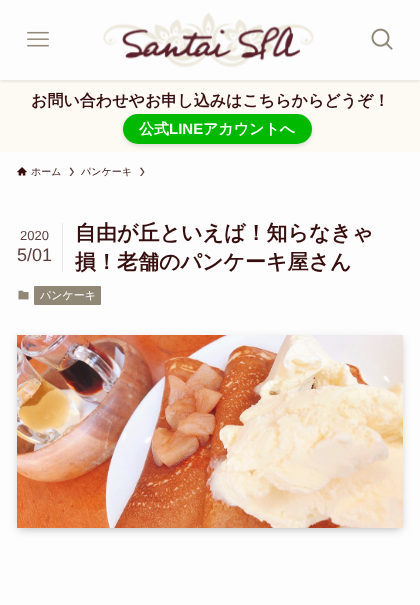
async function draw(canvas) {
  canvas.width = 420
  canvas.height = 605
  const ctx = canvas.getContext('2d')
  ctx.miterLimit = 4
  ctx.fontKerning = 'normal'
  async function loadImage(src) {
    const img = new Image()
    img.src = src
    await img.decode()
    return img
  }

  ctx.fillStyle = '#fdfdfd'
  ctx.fillRect(0, 0, 420, 605)
  ctx.fillStyle = '#fdfaf4'
  ctx.fillRect(0, 80, 420, 72)
  ctx.save()
  ctx.beginPath()
  ctx.rect(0, 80, 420, 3)
  ctx.clip()
  ctx.fillStyle = '#0000001f'
  ctx.filter = 'blur(2px)'
  ctx.beginPath()
  ctx.rect(0, 1, 420, 80)
  ctx.fill()
  ctx.filter = 'none'
  ctx.restore()
  ctx.drawImage(await loadImage('image0.png'), 27, 31, 22, 16)
  ctx.drawImage(await loadImage('image1.png'), 103, 12, 211, 56)
  ctx.drawImage(await loadImage('image2.png'), 371, 28, 22, 22)
  ctx.font = 'bold 16px WenQuanYi Zen Hei'
  ctx.fillStyle = '#350e0d'
  ctx.fillText('お問い合わせやお申し込みはこちらからどうぞ！', 31, 106)
  ctx.fillStyle = '#0000001f'
  ctx.filter = 'blur(2px)'
  ctx.beginPath()
  ctx.roundRect(123, 116, 189, 30, 15)
  ctx.fill()
  ctx.filter = 'none'
  ctx.fillStyle = '#00b900'
  ctx.beginPath()
  ctx.roundRect(123, 114, 189, 30, 15)
  ctx.fill()
  ctx.font = 'bold 15px WenQuanYi Zen Hei'
  ctx.fillStyle = '#fff'
  ctx.fillText('公式', 139, 134)
  ctx.font = 'bold 15px Liberation Sans'
  ctx.fillText('LINE', 169, 134)
  ctx.font = 'bold 15px WenQuanYi Zen Hei'
  ctx.fillText('アカウントへ', 203, 134)
  ctx.drawImage(await loadImage('image3.png'), 17, 167, 10, 9)
  ctx.font = '500 10px WenQuanYi Zen Hei'
  ctx.fillStyle = '#350e0d'
  ctx.fillText('ホーム', 31, 175)
  ctx.fillStyle = '#5d3e3d'
  ctx.beginPath()
  ctx.moveTo(71, 167.5)
  ctx.lineTo(69.5, 168)
  ctx.lineTo(72.5, 172)
  ctx.lineTo(69.5, 176)
  ctx.lineTo(71, 176)
  ctx.lineTo(74, 172)
  ctx.closePath()
  ctx.fill()
  ctx.fillStyle = '#350e0d'
  ctx.fillText('パンケーキ', 81, 175)
  ctx.fillStyle = '#5d3e3d'
  ctx.beginPath()
  ctx.moveTo(141.5, 167.5)
  ctx.lineTo(140, 168)
  ctx.lineTo(143, 172)
  ctx.lineTo(140, 176)
  ctx.lineTo(141.5, 176)
  ctx.lineTo(144.5, 172)
  ctx.closePath()
  ctx.fill()
  ctx.fillStyle = '#e8e8e8'
  ctx.fillRect(62, 223, 1, 49)
  ctx.font = '13px Liberation Sans'
  ctx.fillStyle = '#5d3e3d'
  ctx.fillText('2020', 20, 240)
  ctx.font = '18px Liberation Sans'
  ctx.fillText('5/01', 17, 261)
  ctx.font = 'bold 21px WenQuanYi Zen Hei'
  ctx.fillStyle = '#350e0d'
  ctx.fillText('自由が丘といえば！知らなきゃ', 75, 240)
  ctx.fillText('損！老舗のパンケーキ屋さん', 75, 269)
  ctx.drawImage(await loadImage('image4.png'), 18, 290, 11, 10)
  ctx.fillStyle = '#918777'
  ctx.beginPath()
  ctx.roundRect(34, 286, 67, 19, 1)
  ctx.fill()
  ctx.font = '500 11px WenQuanYi Zen Hei'
  ctx.fillStyle = '#fff'
  ctx.fillText('パンケーキ', 40, 299)
  ctx.fillStyle = '#00000033'
  ctx.filter = 'blur(4px)'
  ctx.beginPath()
  ctx.rect(21, 343, 378, 185)
  ctx.fill()
  ctx.filter = 'none'
  ctx.fillStyle = '#0000001a'
  ctx.filter = 'blur(4px)'
  ctx.beginPath()
  ctx.rect(17, 337, 386, 193)
  ctx.fill()
  ctx.filter = 'none'
  ctx.drawImage(await loadImage('image5.png'), 17, 335, 386, 193)
}

draw(document.querySelector('canvas'))
